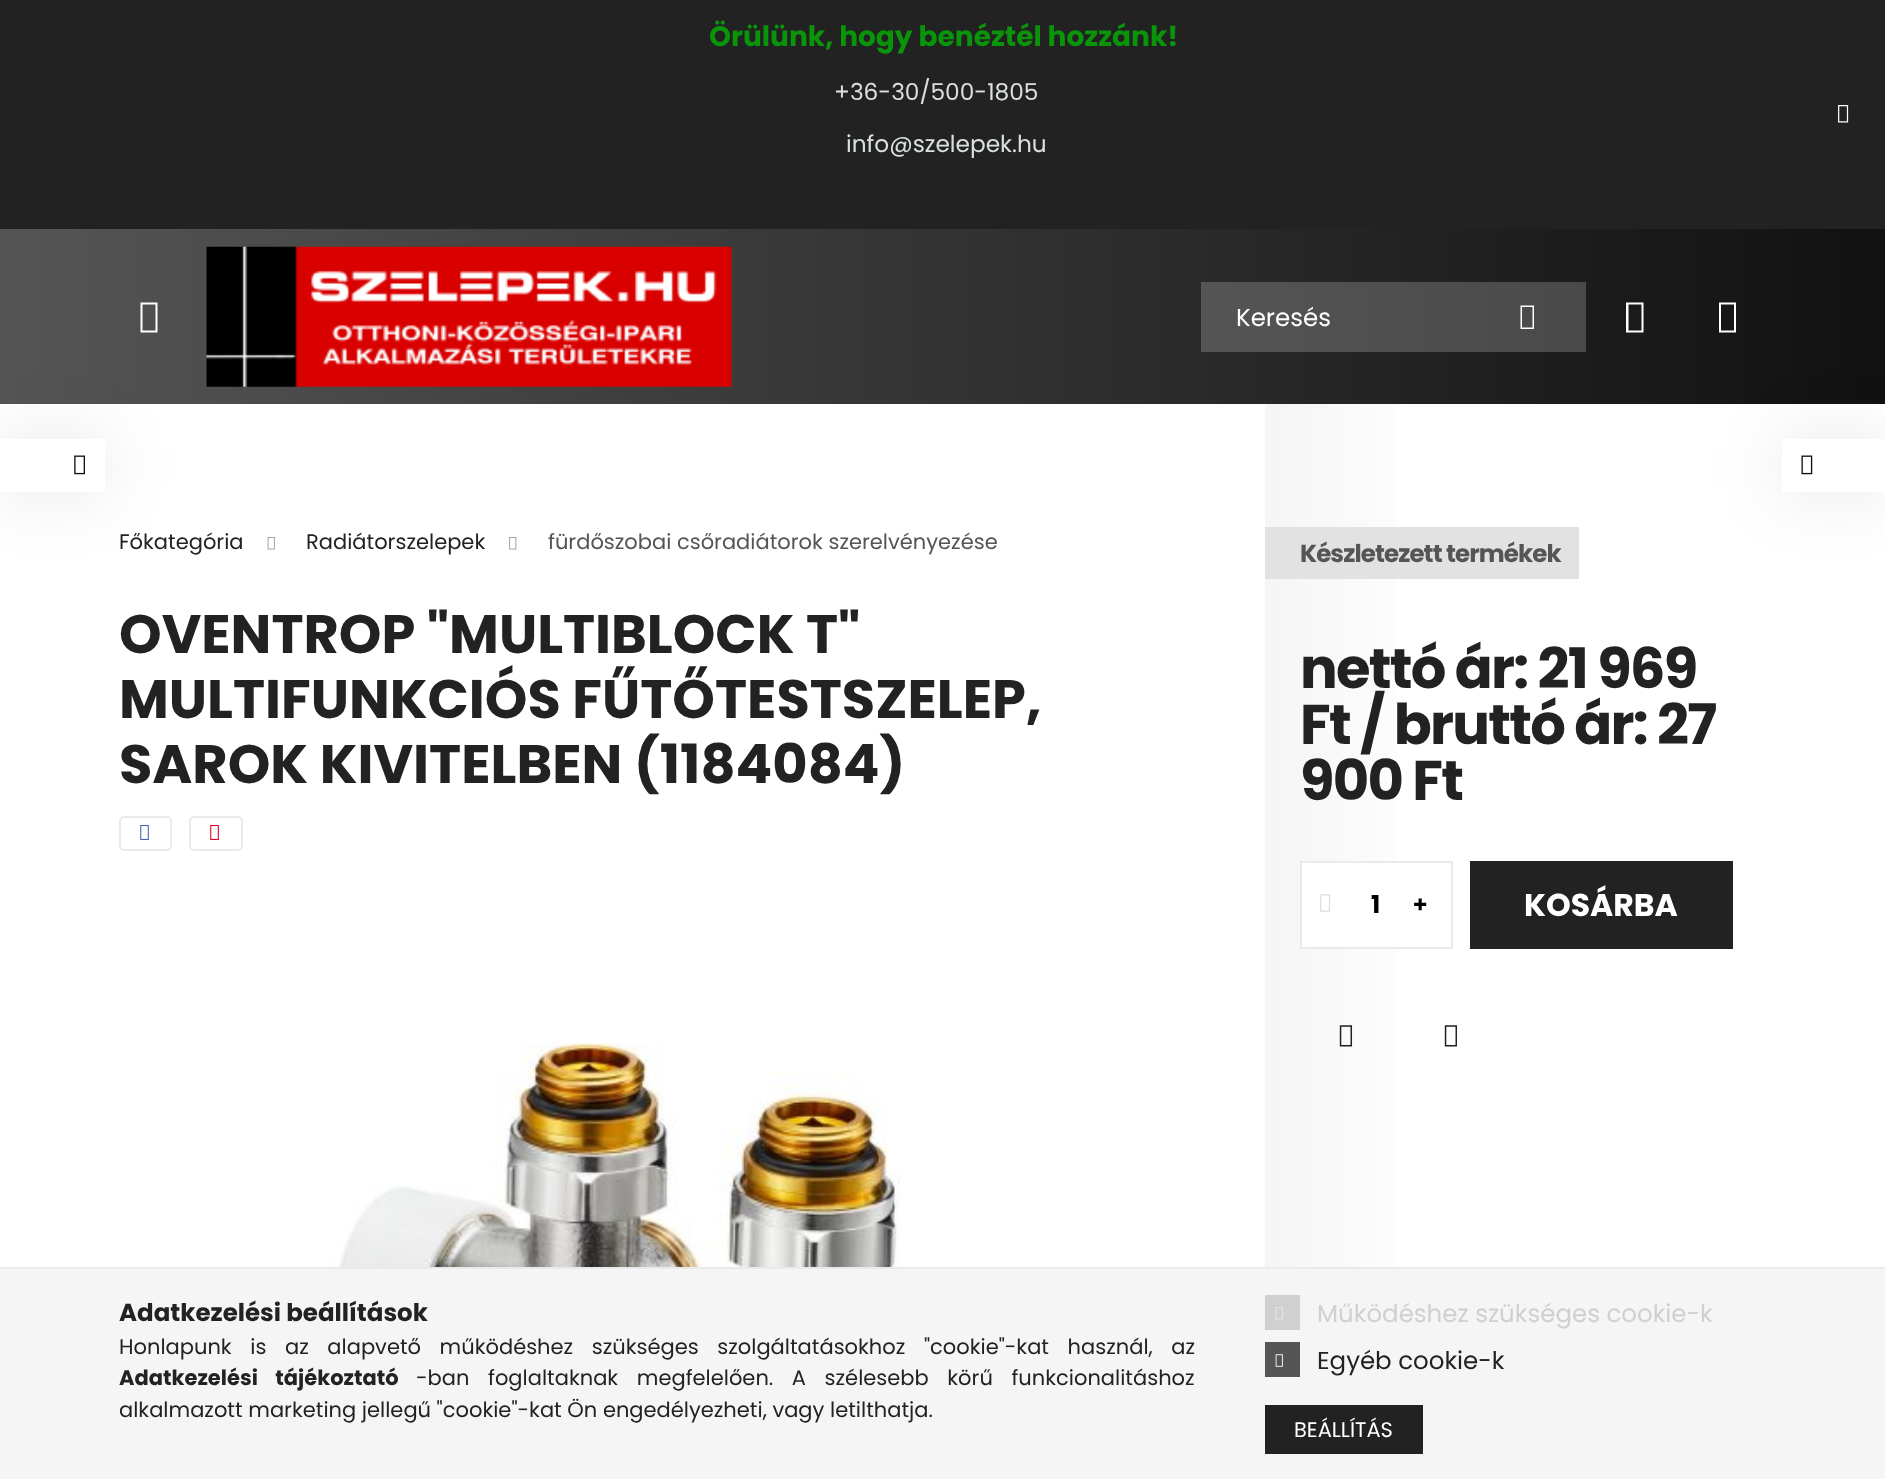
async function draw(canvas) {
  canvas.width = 1885
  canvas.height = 1479
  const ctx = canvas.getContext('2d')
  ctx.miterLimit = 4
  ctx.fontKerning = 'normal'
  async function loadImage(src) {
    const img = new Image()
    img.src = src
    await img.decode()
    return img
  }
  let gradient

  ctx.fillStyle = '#fff'
  ctx.fillRect(0, 0, 1885, 1479)
  ctx.fillStyle = '#222'
  ctx.fillRect(0, 0, 1885, 229)
  ctx.font = 'bold 28px Poppins'
  ctx.fillStyle = '#0a940a'
  ctx.fillText('Örülünk, hogy benéztél hozzánk!', 709, 46)
  ctx.font = '23.25px Poppins'
  ctx.fillStyle = '#dae0dd'
  ctx.fillText('+36-30/500-1805', 834, 100)
  ctx.drawImage(await loadImage('image0.png'), 1838, 105, 11, 18)
  ctx.fillText('info@szelepek.hu', 846, 152)
  gradient = ctx.createLinearGradient(0, 317, 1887, 317)
  gradient.addColorStop(0, '#555')
  gradient.addColorStop(1, '#111')
  ctx.fillStyle = gradient
  ctx.fillRect(0, 229, 1885, 175)
  gradient = ctx.createLinearGradient(0, 317, 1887, 317)
  gradient.addColorStop(0, '#777')
  gradient.addColorStop(1, '#414141')
  ctx.fillStyle = gradient
  ctx.fillRect(1201, 282, 385, 70)
  ctx.fillStyle = '#fff'
  ctx.beginPath()
  ctx.moveTo(140.5, 332.5)
  ctx.lineTo(140.5, 302.5)
  ctx.lineTo(157.5, 302.5)
  ctx.lineTo(157.5, 332.5)
  ctx.closePath()
  ctx.moveTo(142.5, 330.5)
  ctx.lineTo(155.5, 330.5)
  ctx.lineTo(155.5, 304.5)
  ctx.lineTo(142.5, 304.5)
  ctx.closePath()
  ctx.fill()
  ctx.drawImage(await loadImage('image1.png'), 206, 246, 526, 141)
  ctx.font = '24.5px Poppins'
  ctx.fillText('Keresés', 1236, 326)
  ctx.beginPath()
  ctx.moveTo(1520.5, 329)
  ctx.lineTo(1520.5, 305.5)
  ctx.lineTo(1534, 305.5)
  ctx.lineTo(1534, 329)
  ctx.closePath()
  ctx.moveTo(1522, 327.5)
  ctx.lineTo(1532.5, 327.5)
  ctx.lineTo(1532.5, 307)
  ctx.lineTo(1522, 307)
  ctx.closePath()
  ctx.fill()
  ctx.beginPath()
  ctx.moveTo(1626, 332.5)
  ctx.lineTo(1626, 302.5)
  ctx.lineTo(1643.5, 302.5)
  ctx.lineTo(1643.5, 332.5)
  ctx.closePath()
  ctx.moveTo(1628.5, 330.5)
  ctx.lineTo(1641.5, 330.5)
  ctx.lineTo(1641.5, 304.5)
  ctx.lineTo(1628.5, 304.5)
  ctx.closePath()
  ctx.fill()
  ctx.beginPath()
  ctx.moveTo(1719, 332.5)
  ctx.lineTo(1719, 302.5)
  ctx.lineTo(1736, 302.5)
  ctx.lineTo(1736, 332.5)
  ctx.closePath()
  ctx.moveTo(1721, 330.5)
  ctx.lineTo(1734, 330.5)
  ctx.lineTo(1734, 304.5)
  ctx.lineTo(1721, 304.5)
  ctx.closePath()
  ctx.fill()
  ctx.fillStyle = '#0000001a'
  ctx.filter = 'blur(35px)'
  ctx.beginPath()
  ctx.rect(0, 439, 105, 53)
  ctx.fill()
  ctx.filter = 'none'
  ctx.fillStyle = '#fff'
  ctx.fillRect(0, 439, 105, 53)
  ctx.drawImage(await loadImage('image2.png'), 74, 455, 11, 20)
  ctx.fillStyle = '#0000001a'
  ctx.filter = 'blur(35px)'
  ctx.beginPath()
  ctx.rect(1782, 439, 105, 53)
  ctx.fill()
  ctx.filter = 'none'
  ctx.fillStyle = '#fff'
  ctx.fillRect(1782, 439, 103, 53)
  ctx.drawImage(await loadImage('image3.png'), 1801, 455, 12, 20)
  ctx.font = '21px Poppins'
  ctx.fillStyle = '#222'
  ctx.fillText('Főkategória', 119, 549)
  ctx.drawImage(await loadImage('image4.png'), 267, 537, 8, 13)
  ctx.fillText('Radiátorszelepek', 306, 549)
  ctx.drawImage(await loadImage('image5.png'), 509, 537, 8, 13)
  ctx.fillStyle = '#555'
  ctx.fillText('fürdőszobai csőradiátorok szerelvényezése', 548, 549)
  ctx.font = 'bold 54.25px Poppins'
  ctx.fillStyle = '#222'
  ctx.fillText('OVENTROP "MULTIBLOCK T"', 119, 653)
  ctx.fillText('MULTIFUNKCIÓS FŰTŐTESTSZELEP,', 119, 718)
  ctx.fillText('SAROK KIVITELBEN (1184084)', 119, 783)
  ctx.beginPath()
  ctx.roundRect(120, 817, 51, 33, 4)
  ctx.strokeStyle = '#eaeaea'
  ctx.lineWidth = 2
  ctx.stroke()
  ctx.drawImage(await loadImage('image6.png'), 140, 825, 9, 15)
  ctx.beginPath()
  ctx.roundRect(190, 817, 52, 33, 4)
  ctx.stroke()
  ctx.drawImage(await loadImage('image7.png'), 210, 825, 9, 15)
  ctx.drawImage(await loadImage('image8.png'), 333, 1042, 652, 225)
  gradient = ctx.createLinearGradient(1265, 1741, 1768, 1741)
  gradient.addColorStop(0, '#f5f5f5')
  gradient.addColorStop(0.35, '#fff')
  gradient.addColorStop(1, '#fff')
  ctx.fillStyle = gradient
  ctx.fillRect(1265, 404, 132, 863)
  ctx.fillStyle = '#e2e2e2'
  ctx.fillRect(1265, 527, 314, 52)
  ctx.letterSpacing = '-0.9px'
  ctx.font = 'bold 24.5px Poppins'
  ctx.fillStyle = '#555'
  ctx.fillText('Készletezett termékek', 1300, 562)
  ctx.letterSpacing = '-1.75px'
  ctx.font = 'bold 56px Poppins'
  ctx.fillStyle = '#222'
  ctx.fillText('nettó ár: 21 969', 1300, 688)
  ctx.fillText('Ft / bruttó ár: 27', 1300, 744)
  ctx.fillText('900 Ft', 1300, 800)
  ctx.fillStyle = '#fff'
  ctx.fillRect(1302, 863, 95, 84)
  ctx.strokeRect(1301, 862, 151, 86)
  ctx.drawImage(await loadImage('image9.png'), 1320, 894, 11, 18)
  ctx.letterSpacing = '0px'
  ctx.font = 'bold 24.5px Poppins'
  ctx.fillStyle = '#000'
  ctx.fillText('1', 1371, 913)
  ctx.font = '900 24.5px Noto Sans'
  ctx.fillText('+', 1413, 913)
  gradient = ctx.createLinearGradient(945, 905, 1733, 905)
  gradient.addColorStop(0, '#555')
  gradient.addColorStop(0.33, '#111')
  gradient.addColorStop(0.67, '#222')
  gradient.addColorStop(1, '#222')
  ctx.fillStyle = gradient
  ctx.fillRect(1470, 861, 263, 88)
  ctx.font = 'bold 31.5px Poppins'
  ctx.fillStyle = '#fff'
  ctx.fillText('KOSÁRBA', 1524, 916)
  ctx.drawImage(await loadImage('image10.png'), 1339, 1025, 14, 22)
  ctx.drawImage(await loadImage('image11.png'), 1444, 1025, 14, 22)
  ctx.fillStyle = '#f5f5f5'
  ctx.fillRect(0, 1269, 1885, 210)
  ctx.fillStyle = '#eaeaea'
  ctx.fillRect(0, 1267, 1885, 2)
  ctx.font = 'bold 24.5px Poppins'
  ctx.fillStyle = '#222'
  ctx.fillText('Adatkezelési beállítások', 119, 1321)
  ctx.wordSpacing = '13px'
  ctx.font = '21px Poppins'
  ctx.fillText('Honlapunk is az alapvető működéshez szükséges szolgáltatásokhoz "cookie"-kat használ, az', 119, 1354)
  ctx.font = 'bold 21px Poppins'
  ctx.fillText('Adatkezelési tájékoztató', 119, 1385)
  ctx.font = '21px Poppins'
  ctx.fillText('-ban foglaltaknak megfelelően. A szélesebb körű funkcionalitáshoz', 416, 1385)
  ctx.wordSpacing = '0px'
  ctx.fillText('alkalmazott marketing jellegű "cookie"-kat Ön engedélyezheti, vagy letilthatja.', 119, 1417)
  ctx.fillStyle = '#d0d0d0'
  ctx.fillRect(1265, 1295, 35, 35)
  ctx.drawImage(await loadImage('image12.png'), 1275, 1307, 8, 13)
  ctx.font = '24.5px Poppins'
  ctx.fillText('Működéshez szükséges cookie-k', 1317, 1322)
  ctx.fillStyle = '#555'
  ctx.fillRect(1265, 1342, 35, 35)
  ctx.drawImage(await loadImage('image13.png'), 1275, 1354, 8, 13)
  ctx.fillStyle = '#222'
  ctx.fillText('Egyéb cookie-k', 1317, 1369)
  gradient = ctx.createLinearGradient(950, 1430, 1423, 1430)
  gradient.addColorStop(0, '#555')
  gradient.addColorStop(0.33, '#111')
  gradient.addColorStop(0.67, '#222')
  gradient.addColorStop(1, '#222')
  ctx.fillStyle = gradient
  ctx.fillRect(1265, 1405, 158, 49)
  ctx.font = '21px Poppins'
  ctx.fillStyle = '#fff'
  ctx.fillText('BEÁLLÍTÁS', 1294, 1437)
}

draw(document.querySelector('canvas'))
